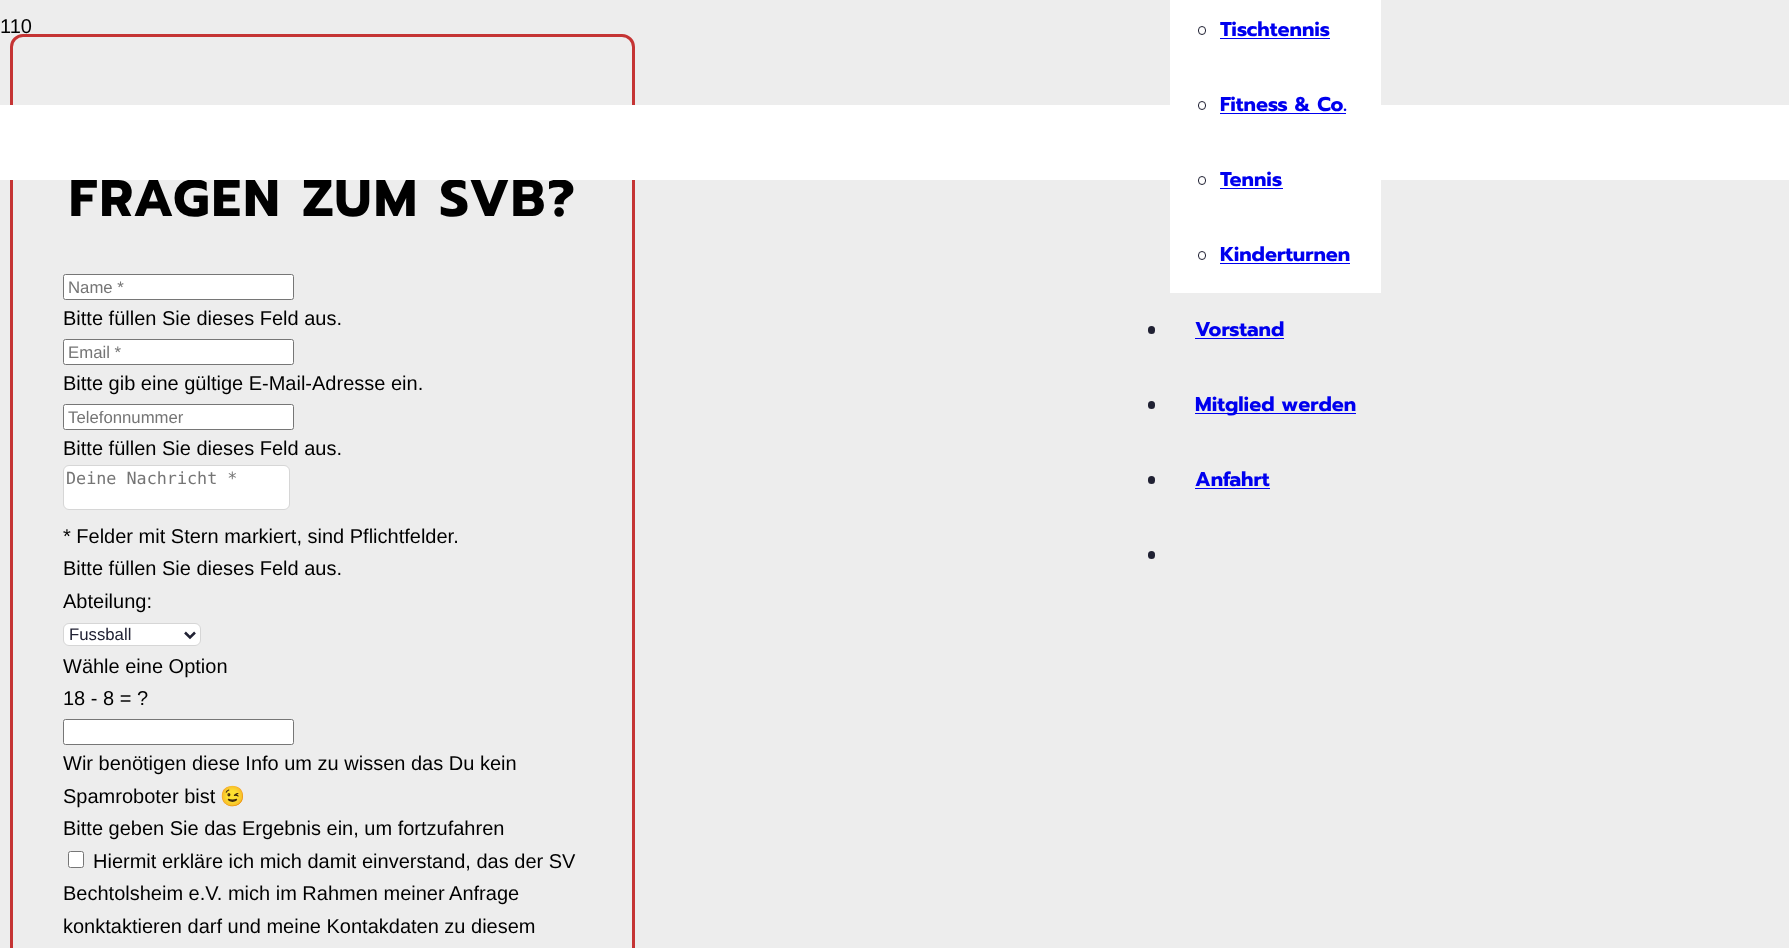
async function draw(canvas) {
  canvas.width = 1789
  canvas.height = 948
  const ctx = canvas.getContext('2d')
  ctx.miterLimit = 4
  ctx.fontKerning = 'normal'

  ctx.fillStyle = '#ededed'
  ctx.fillRect(0, 0, 1789, 948)
  ctx.font = '20px Liberation Sans'
  ctx.fillStyle = '#000'
  ctx.fillText('110', 0, 33)
  ctx.beginPath()
  ctx.roundRect(11.5, 35.5, 622, 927, 11.5)
  ctx.strokeStyle = '#c53434'
  ctx.lineWidth = 3
  ctx.stroke()
  ctx.letterSpacing = '2.6px'
  ctx.font = 'bold 51.5px Prompt'
  ctx.fillText('FRAGEN ZUM SVB?', 69, 216)
  ctx.fillStyle = '#fff'
  ctx.fillRect(0, 105, 1789, 75)
  ctx.fillRect(1170, 0, 211, 293)
  ctx.beginPath()
  ctx.roundRect(1198.5, 26.5, 7, 8, 3.5)
  ctx.strokeStyle = '#202133'
  ctx.lineWidth = 1
  ctx.stroke()
  ctx.letterSpacing = '0px'
  ctx.font = 'bold 20px Prompt'
  ctx.fillStyle = '#00e'
  ctx.fillText('Tischtennis', 1220, 36)
  ctx.fillRect(1220, 38, 110, 1)
  ctx.beginPath()
  ctx.roundRect(1198.5, 101.5, 7, 8, 3.5)
  ctx.stroke()
  ctx.fillText('Fitness & Co.', 1220, 111)
  ctx.fillRect(1220, 113, 126, 1)
  ctx.beginPath()
  ctx.roundRect(1198.5, 176.5, 7, 8, 3.5)
  ctx.stroke()
  ctx.fillText('Tennis', 1220, 186)
  ctx.fillRect(1220, 188, 63, 1)
  ctx.beginPath()
  ctx.roundRect(1198.5, 251.5, 7, 8, 3.5)
  ctx.stroke()
  ctx.fillText('Kinderturnen', 1220, 261)
  ctx.fillRect(1220, 263, 130, 1)
  ctx.fillStyle = '#202133'
  ctx.beginPath()
  ctx.roundRect(1148, 326, 7, 8, 3.5)
  ctx.fill()
  ctx.fillStyle = '#00e'
  ctx.fillText('Vorstand', 1195, 336)
  ctx.fillRect(1195, 338, 89, 1)
  ctx.fillStyle = '#202133'
  ctx.beginPath()
  ctx.roundRect(1148, 401, 7, 8, 3.5)
  ctx.fill()
  ctx.fillStyle = '#00e'
  ctx.fillRect(1195, 413, 161, 1)
  ctx.fillText('Mitglied werden', 1195, 411)
  ctx.fillStyle = '#202133'
  ctx.beginPath()
  ctx.roundRect(1148, 476, 7, 8, 3.5)
  ctx.fill()
  ctx.fillStyle = '#00e'
  ctx.fillText('Anfahrt', 1195, 486)
  ctx.fillRect(1195, 488, 75, 1)
  ctx.fillStyle = '#202133'
  ctx.beginPath()
  ctx.roundRect(1148, 551, 7, 8, 3.5)
  ctx.fill()
  ctx.fillStyle = '#fff'
  ctx.beginPath()
  ctx.roundRect(63.5, 274.5, 230, 25, 2)
  ctx.fill()
  ctx.strokeStyle = '#767676'
  ctx.stroke()
  ctx.font = '16.75px Liberation Sans'
  ctx.fillStyle = '#757575'
  ctx.fillText('Name *', 68, 293)
  ctx.font = '20px Liberation Sans'
  ctx.fillStyle = '#000'
  ctx.fillText('Bitte füllen Sie dieses Feld aus.', 63, 325)
  ctx.fillStyle = '#fff'
  ctx.beginPath()
  ctx.roundRect(63.5, 339.5, 230, 25, 2)
  ctx.fill()
  ctx.stroke()
  ctx.font = '16.75px Liberation Sans'
  ctx.fillStyle = '#757575'
  ctx.fillText('Email *', 68, 358)
  ctx.font = '20px Liberation Sans'
  ctx.fillStyle = '#000'
  ctx.fillText('Bitte gib eine gültige E-Mail-Adresse ein.', 63, 390)
  ctx.fillStyle = '#fff'
  ctx.beginPath()
  ctx.roundRect(63.5, 404.5, 230, 25, 2)
  ctx.fill()
  ctx.stroke()
  ctx.font = '16.75px Liberation Sans'
  ctx.fillStyle = '#757575'
  ctx.fillText('Telefonnummer', 68, 423)
  ctx.font = '20px Liberation Sans'
  ctx.fillStyle = '#000'
  ctx.fillText('Bitte füllen Sie dieses Feld aus.', 63, 455)
  ctx.fillStyle = '#fff'
  ctx.beginPath()
  ctx.roundRect(63.5, 465.5, 226, 44, 5.5)
  ctx.fill()
  ctx.strokeStyle = '#d6d6d6'
  ctx.stroke()
  ctx.font = '16.75px DejaVu Sans Mono'
  ctx.fillStyle = '#757575'
  ctx.fillText('Deine Nachricht *', 66, 484)
  ctx.font = '20px Liberation Sans'
  ctx.fillStyle = '#000'
  ctx.fillText('* Felder mit Stern markiert, sind Pflichtfelder.', 63, 543)
  ctx.fillText('Bitte füllen Sie dieses Feld aus.', 63, 575)
  ctx.fillText('Abteilung:', 63, 608)
  ctx.fillStyle = '#fff'
  ctx.beginPath()
  ctx.roundRect(63.5, 623.5, 137, 22, 5.5)
  ctx.fill()
  ctx.stroke()
  ctx.beginPath()
  ctx.moveTo(185, 632.5)
  ctx.lineTo(190, 637.5)
  ctx.lineTo(195, 632.5)
  ctx.strokeStyle = '#202133'
  ctx.lineWidth = 2.5
  ctx.stroke()
  ctx.font = '16.75px Liberation Sans'
  ctx.fillStyle = '#202133'
  ctx.fillText('Fussball', 69, 640)
  ctx.font = '20px Liberation Sans'
  ctx.fillStyle = '#000'
  ctx.fillText('Wähle eine Option', 63, 673)
  ctx.fillText('18 - 8 = ?', 63, 705)
  ctx.fillStyle = '#fff'
  ctx.beginPath()
  ctx.roundRect(63.5, 719.5, 230, 25, 2)
  ctx.fill()
  ctx.strokeStyle = '#767676'
  ctx.lineWidth = 1
  ctx.stroke()
  ctx.fillStyle = '#000'
  ctx.fillText('Wir benötigen diese Info um zu wissen das Du kein', 63, 770)
  ctx.fillText('Spamroboter bist', 63, 803)
  ctx.font = '20px Noto Color Emoji'
  ctx.fillText('😉', 220, 803)
  ctx.font = '20px Liberation Sans'
  ctx.fillText('Bitte geben Sie das Ergebnis ein, um fortzufahren', 63, 835)
  ctx.fillStyle = '#fff'
  ctx.beginPath()
  ctx.roundRect(68.5, 851.5, 15, 16, 2)
  ctx.fill()
  ctx.stroke()
  ctx.fillStyle = '#000'
  ctx.fillText('Hiermit erkläre ich mich damit einverstand, das der SV', 93, 868)
  ctx.fillText('Bechtolsheim e.V. mich im Rahmen meiner Anfrage', 63, 900)
  ctx.fillText('konktaktieren darf und meine Kontakdaten zu diesem', 63, 933)
}

draw(document.querySelector('canvas'))
